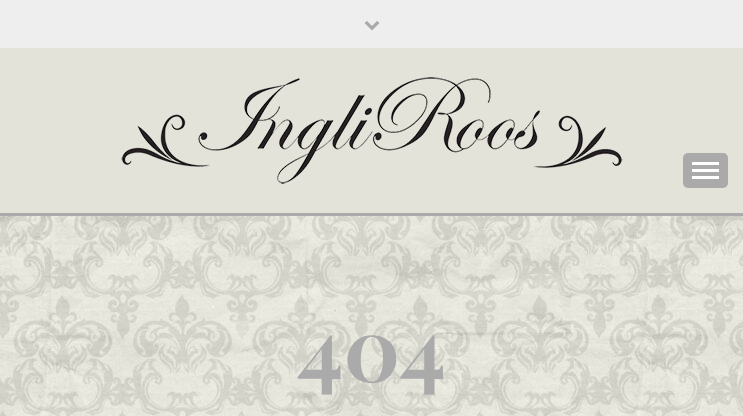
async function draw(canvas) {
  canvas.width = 743
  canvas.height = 416
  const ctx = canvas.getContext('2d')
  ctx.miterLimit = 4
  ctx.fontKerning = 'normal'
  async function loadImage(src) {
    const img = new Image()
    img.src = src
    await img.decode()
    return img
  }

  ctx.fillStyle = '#fff'
  ctx.fillRect(0, 0, 743, 416)
  ctx.drawImage(await loadImage('image0.png'), 0, 216, 743, 200)
  ctx.fillStyle = '#e4e3d9'
  ctx.fillRect(0, 48, 743, 165)
  ctx.fillStyle = '#eee'
  ctx.fillRect(0, 0, 743, 48)
  ctx.drawImage(await loadImage('image1.png'), 364, 21, 16, 10)
  ctx.drawImage(await loadImage('image2.png'), 121, 77, 502, 107)
  ctx.fillStyle = '#aaa'
  ctx.beginPath()
  ctx.roundRect(683, 153, 45, 35, 5)
  ctx.fill()
  ctx.fillStyle = '#fff'
  ctx.fillRect(692, 162, 27, 3)
  ctx.fillRect(692, 169, 27, 3)
  ctx.fillRect(692, 176, 27, 3)
  ctx.fillStyle = '#aaa'
  ctx.fillRect(0, 213, 743, 3)
  ctx.font = 'bold 88px Playfair Display'
  ctx.fillText('404', 297, 382)
}

draw(document.querySelector('canvas'))
